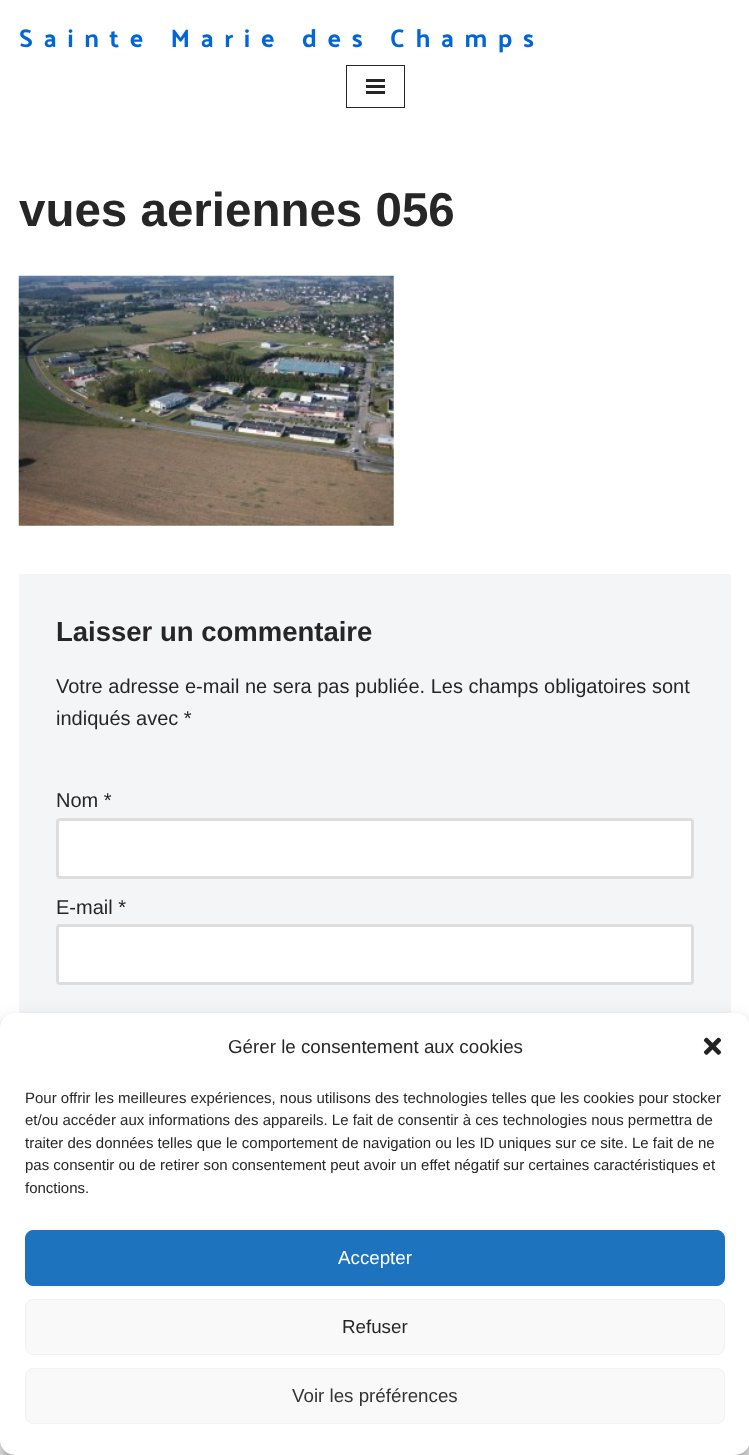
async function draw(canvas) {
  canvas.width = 749
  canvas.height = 1455
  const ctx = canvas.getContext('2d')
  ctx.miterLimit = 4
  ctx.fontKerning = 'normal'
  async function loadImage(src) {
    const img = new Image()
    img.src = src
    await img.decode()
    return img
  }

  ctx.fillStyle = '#fff'
  ctx.fillRect(0, 0, 749, 1455)
  ctx.letterSpacing = '10.5px'
  ctx.font = 'bold 25.5px Palanquin'
  ctx.fillStyle = '#0366d6'
  ctx.fillText('Sainte Marie des Champs', 19, 47)
  ctx.strokeStyle = '#272626'
  ctx.strokeRect(346.5, 65.5, 58, 42)
  ctx.fillStyle = '#272626'
  ctx.fillRect(366, 79, 19, 3)
  ctx.fillRect(366, 85, 19, 3)
  ctx.fillRect(366, 91, 19, 3)
  ctx.letterSpacing = '0px'
  ctx.font = 'bold 47.5px Liberation Sans'
  ctx.fillText('vues aeriennes 056', 19, 226)
  ctx.drawImage(await loadImage('image0.png'), 18, 275, 376, 251)
  ctx.fillStyle = '#f4f5f7'
  ctx.fillRect(19, 574, 712, 439)
  ctx.font = 'bold 27.5px Liberation Sans'
  ctx.fillStyle = '#272626'
  ctx.fillText('Laisser un commentaire', 56, 641)
  ctx.font = '20px Liberation Sans'
  ctx.fillText('Votre adresse e-mail ne sera pas publiée. Les champs obligatoires sont', 56, 693)
  ctx.fillText('indiqués avec *', 56, 725)
  ctx.fillText('Nom *', 56, 807)
  ctx.fillStyle = '#fff'
  ctx.beginPath()
  ctx.roundRect(57.5, 819.5, 635, 58, 2.5)
  ctx.fill()
  ctx.strokeStyle = '#ddd'
  ctx.lineWidth = 3
  ctx.stroke()
  ctx.fillStyle = '#272626'
  ctx.fillText('E-mail *', 56, 914)
  ctx.fillStyle = '#fff'
  ctx.beginPath()
  ctx.roundRect(57.5, 925.5, 635, 58, 2.5)
  ctx.fill()
  ctx.stroke()
  ctx.fillStyle = '#0000003b'
  ctx.filter = 'blur(4px)'
  ctx.beginPath()
  ctx.roundRect(0, 1020, 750, 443, 15)
  ctx.fill()
  ctx.filter = 'none'
  ctx.fillStyle = '#00000030'
  ctx.filter = 'blur(12.5px)'
  ctx.beginPath()
  ctx.roundRect(0, 1025, 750, 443, 15)
  ctx.fill()
  ctx.filter = 'none'
  ctx.fillStyle = '#fff'
  ctx.beginPath()
  ctx.roundRect(0, 1013, 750, 442, 15)
  ctx.fill()
  ctx.font = '18.75px Liberation Sans'
  ctx.fillStyle = '#272626'
  ctx.fillText('Gérer le consentement aux cookies', 228, 1053)
  ctx.drawImage(await loadImage('image1.png'), 703, 1037, 19, 18)
  ctx.font = '15px Liberation Sans'
  ctx.fillText('Pour offrir les meilleures expériences, nous utilisons des technologies telles que les cookies pour stocker', 25, 1103)
  ctx.fillText('et/ou accéder aux informations des appareils. Le fait de consentir à ces technologies nous permettra de', 25, 1125)
  ctx.fillText('traiter des données telles que le comportement de navigation ou les ID uniques sur ce site. Le fait de ne', 25, 1148)
  ctx.fillText('pas consentir ou de retirer son consentement peut avoir un effet négatif sur certaines caractéristiques et', 25, 1170)
  ctx.fillText('fonctions.', 25, 1193)
  ctx.fillStyle = '#1e73be'
  ctx.beginPath()
  ctx.roundRect(25.5, 1230.5, 699, 55, 7.5)
  ctx.fill()
  ctx.strokeStyle = '#1e73be'
  ctx.lineWidth = 1
  ctx.stroke()
  ctx.font = '18.75px Liberation Sans'
  ctx.fillStyle = '#fff'
  ctx.fillText('Accepter', 338, 1264)
  ctx.fillStyle = '#f9f9f9'
  ctx.beginPath()
  ctx.roundRect(25.5, 1299.5, 699, 55, 7.5)
  ctx.fill()
  ctx.strokeStyle = '#f2f2f2'
  ctx.stroke()
  ctx.fillStyle = '#272626'
  ctx.fillText('Refuser', 342, 1333)
  ctx.fillStyle = '#f9f9f9'
  ctx.beginPath()
  ctx.roundRect(25.5, 1368.5, 699, 55, 7.5)
  ctx.fill()
  ctx.stroke()
  ctx.fillStyle = '#333'
  ctx.fillText('Voir les préférences', 292, 1402)
}

draw(document.querySelector('canvas'))
